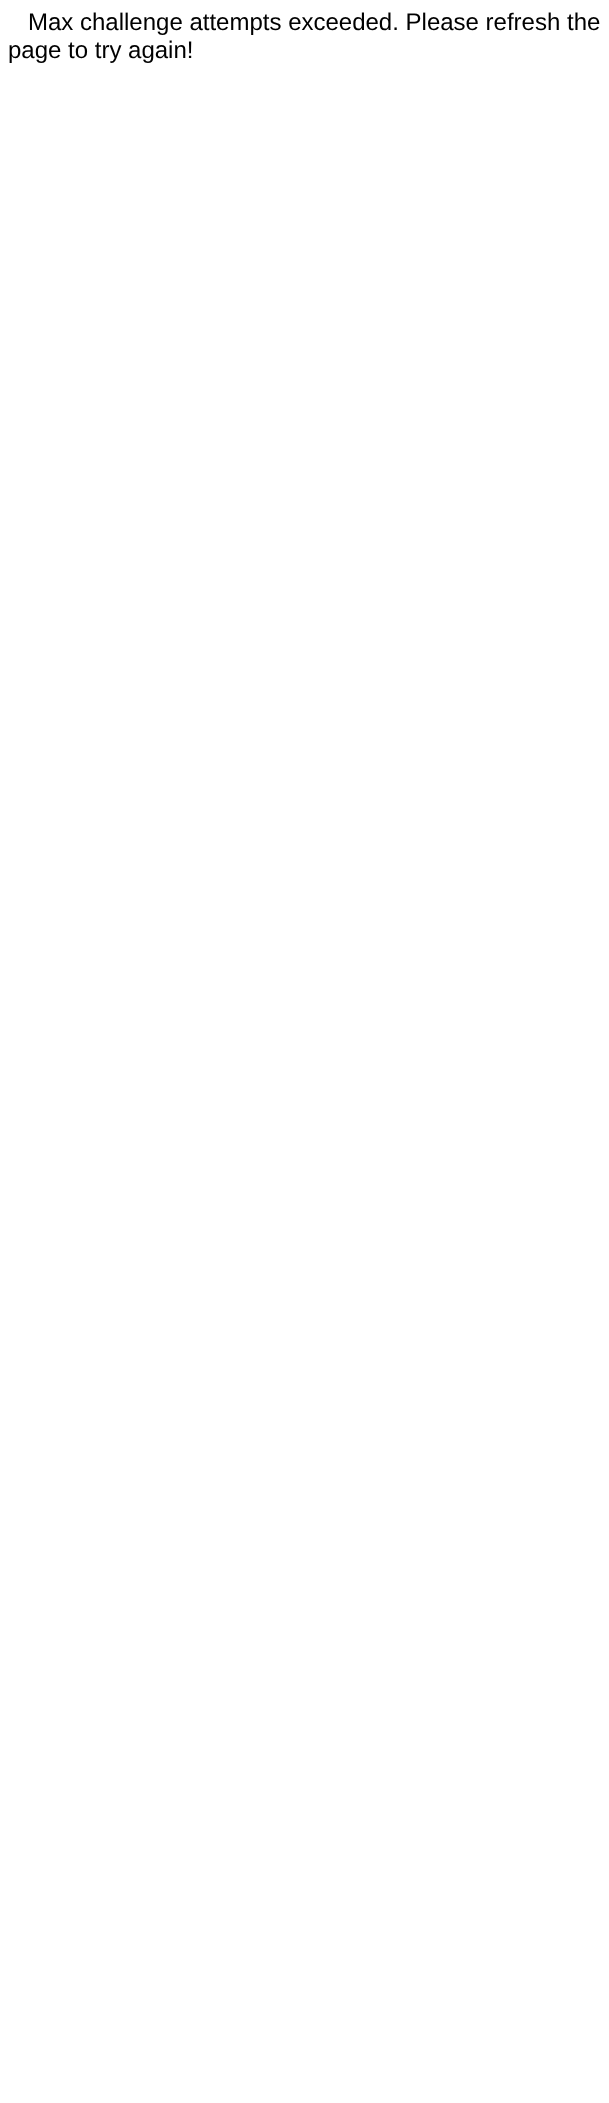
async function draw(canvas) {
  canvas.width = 609
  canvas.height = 2103
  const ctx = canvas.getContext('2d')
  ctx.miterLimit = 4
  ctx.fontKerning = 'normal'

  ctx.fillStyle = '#fff'
  ctx.fillRect(0, 0, 609, 2103)
  ctx.font = '24px Liberation Sans'
  ctx.fillStyle = '#000'
  ctx.fillText('Max challenge attempts exceeded. Please refresh the', 28, 30)
  ctx.fillText('page to try again!', 8, 58)
}

draw(document.querySelector('canvas'))
